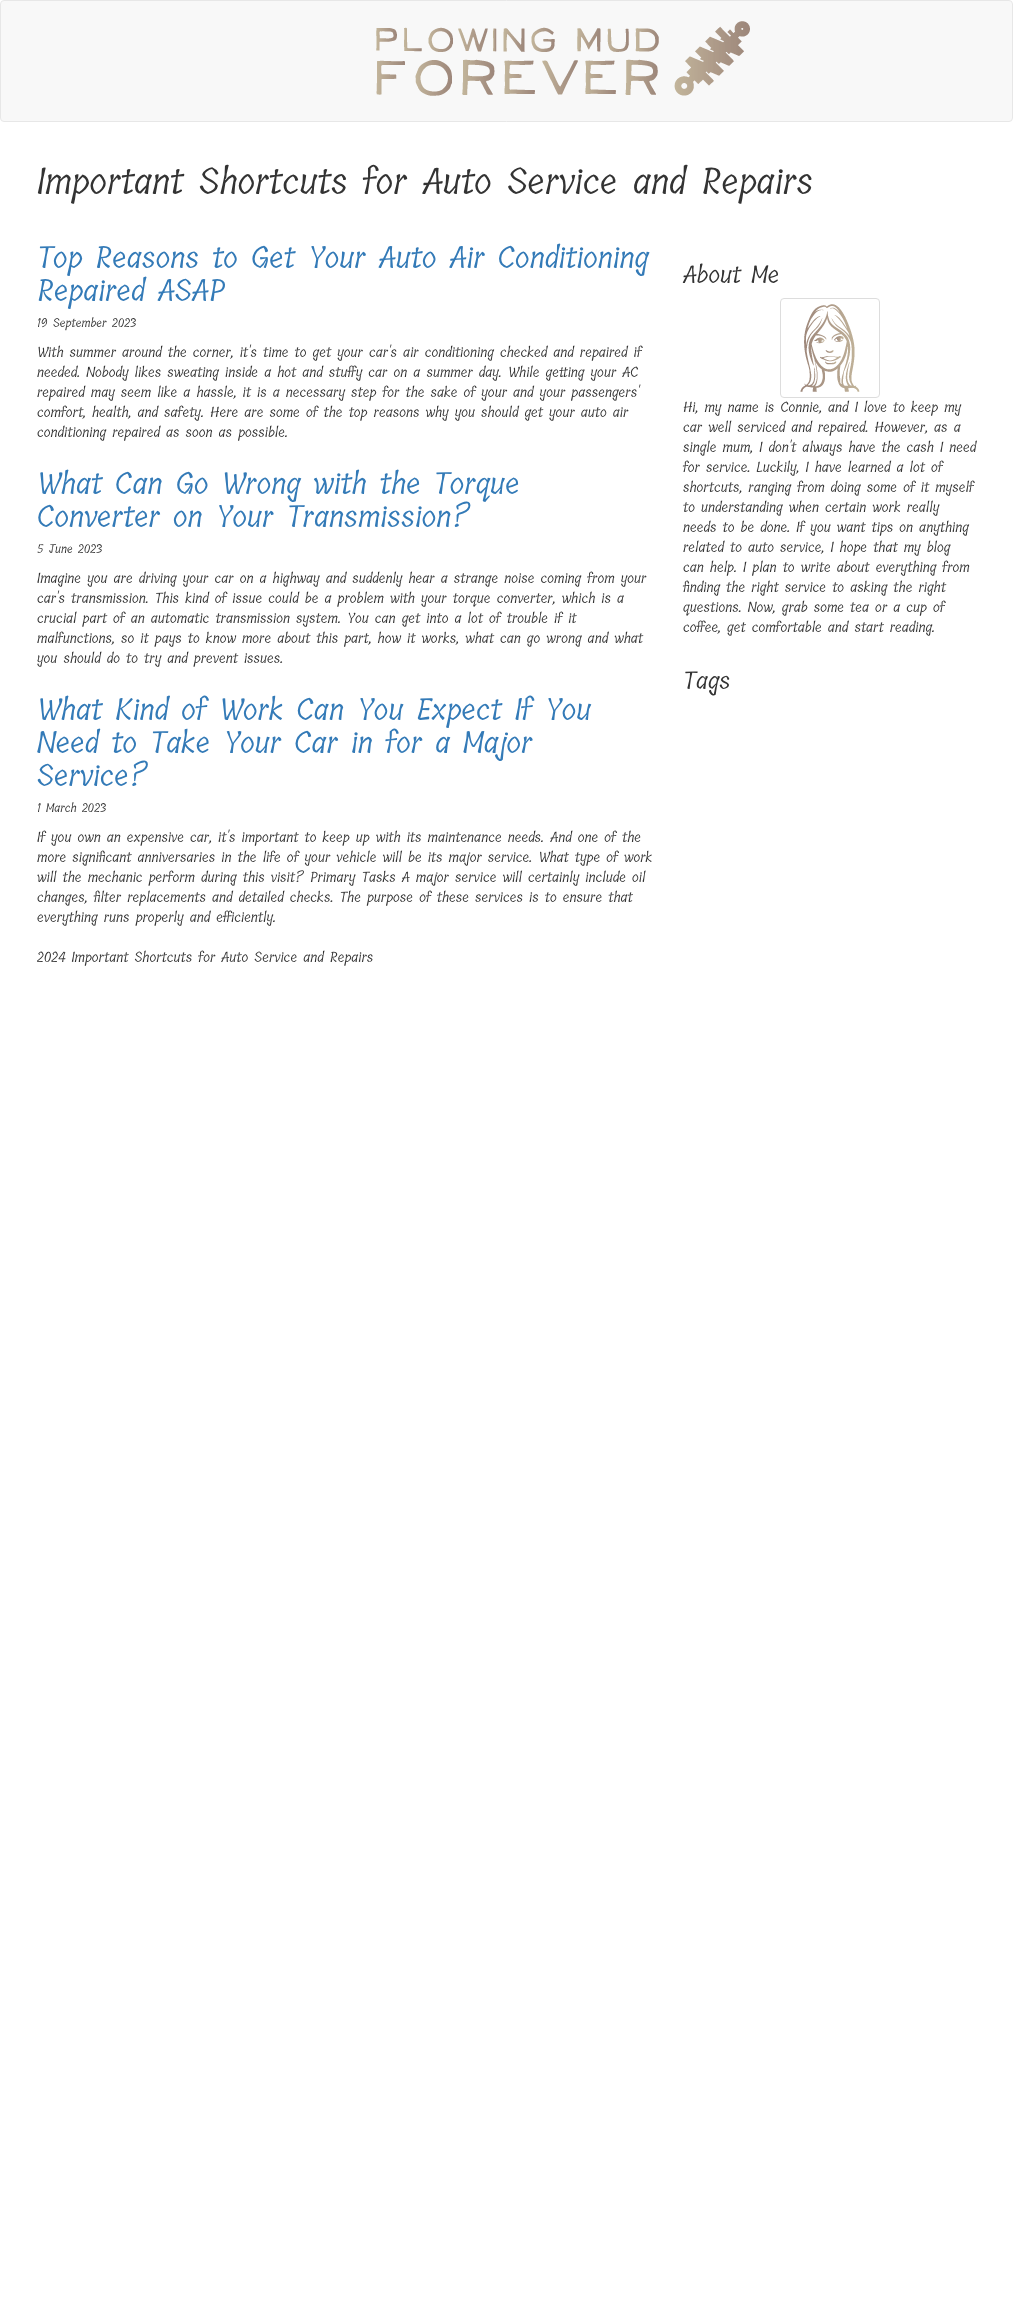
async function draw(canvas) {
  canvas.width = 1013
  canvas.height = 2324
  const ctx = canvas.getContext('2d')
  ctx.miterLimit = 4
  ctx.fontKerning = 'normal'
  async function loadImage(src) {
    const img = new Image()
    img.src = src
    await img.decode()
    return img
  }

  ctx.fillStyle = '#fff'
  ctx.fillRect(0, 0, 1013, 2324)
  ctx.fillStyle = '#f8f8f8'
  ctx.beginPath()
  ctx.roundRect(0.5, 0.5, 1012, 121, 3.5)
  ctx.fill()
  ctx.strokeStyle = '#e7e7e7'
  ctx.stroke()
  ctx.drawImage(await loadImage('image0.png'), 376, 21, 374, 75)
  ctx.font = '36px Tillana'
  ctx.fillStyle = '#333'
  ctx.fillText('Important Shortcuts for Auto Service and Repairs', 37, 194)
  ctx.font = '30px Tillana'
  ctx.fillStyle = '#337ab7'
  ctx.fillText('Top Reasons to Get Your Auto Air Conditioning', 37, 268)
  ctx.fillText('Repaired ASAP', 37, 301)
  ctx.font = '12px Tillana'
  ctx.fillStyle = '#333'
  ctx.fillText('19 September 2023', 37, 327)
  ctx.font = '14px Tillana'
  ctx.fillText('With summer around the corner, it\'s time to get your car\'s air conditioning checked and repaired if', 37, 357)
  ctx.fillText('needed. Nobody likes sweating inside a hot and stuffy car on a summer day. While getting your AC', 37, 377)
  ctx.fillText('repaired may seem like a hassle, it is a necessary step for the sake of your and your passengers\'', 37, 397)
  ctx.fillText('comfort, health, and safety. Here are some of the top reasons why you should get your auto air', 37, 417)
  ctx.fillText('conditioning repaired as soon as possible.', 37, 437)
  ctx.font = '30px Tillana'
  ctx.fillStyle = '#337ab7'
  ctx.fillText('What Can Go Wrong with the Torque', 37, 494)
  ctx.fillText('Converter on Your Transmission?', 37, 527)
  ctx.font = '12px Tillana'
  ctx.fillStyle = '#333'
  ctx.fillText('5 June 2023', 37, 553)
  ctx.font = '14px Tillana'
  ctx.fillText('Imagine you are driving your car on a highway and suddenly hear a strange noise coming from your', 37, 583)
  ctx.fillText('car\'s transmission. This kind of issue could be a problem with your torque converter, which is a', 37, 603)
  ctx.fillText('crucial part of an automatic transmission system. You can get into a lot of trouble if it', 37, 623)
  ctx.fillText('malfunctions, so it pays to know more about this part, how it works, what can go wrong and what', 37, 643)
  ctx.fillText('you should do to try and prevent issues.', 37, 663)
  ctx.font = '30px Tillana'
  ctx.fillStyle = '#337ab7'
  ctx.fillText('What Kind of Work Can You Expect If You', 37, 720)
  ctx.fillText('Need to Take Your Car in for a Major', 37, 753)
  ctx.fillText('Service?', 37, 786)
  ctx.font = '12px Tillana'
  ctx.fillStyle = '#333'
  ctx.fillText('1 March 2023', 37, 812)
  ctx.font = '14px Tillana'
  ctx.fillText('If you own an expensive car, it\'s important to keep up with its maintenance needs. And one of the', 37, 842)
  ctx.fillText('more significant anniversaries in the life of your vehicle will be its major service. What type of work', 37, 862)
  ctx.fillText('will the mechanic perform during this visit? Primary Tasks A major service will certainly include oil', 37, 882)
  ctx.fillText('changes, filter replacements and detailed checks. The purpose of these services is to ensure that', 37, 902)
  ctx.fillText('everything runs properly and efficiently.', 37, 922)
  ctx.font = '24px Tillana'
  ctx.fillText('About Me', 683, 283)
  ctx.beginPath()
  ctx.roundRect(780.5, 298.5, 99, 99, 3.5)
  ctx.strokeStyle = '#ddd'
  ctx.stroke()
  ctx.drawImage(await loadImage('image1.png'), 800, 304, 60, 88)
  ctx.font = '14px Tillana'
  ctx.fillText('Hi, my name is Connie, and I love to keep my', 683, 412)
  ctx.fillText('car well serviced and repaired. However, as a', 683, 432)
  ctx.fillText('single mum, I don\'t always have the cash I need', 683, 452)
  ctx.fillText('for service. Luckily, I have learned a lot of', 683, 472)
  ctx.fillText('shortcuts, ranging from doing some of it myself', 683, 492)
  ctx.fillText('to understanding when certain work really', 683, 512)
  ctx.fillText('needs to be done. If you want tips on anything', 683, 532)
  ctx.fillText('related to auto service, I hope that my blog', 683, 552)
  ctx.fillText('can help. I plan to write about everything from', 683, 572)
  ctx.fillText('finding the right service to asking the right', 683, 592)
  ctx.fillText('questions. Now, grab some tea or a cup of', 683, 612)
  ctx.fillText('coffee, get comfortable and start reading.', 683, 632)
  ctx.font = '24px Tillana'
  ctx.fillText('Tags', 683, 689)
  ctx.font = '14px Tillana'
  ctx.fillText('2024 Important Shortcuts for Auto Service and Repairs', 37, 962)
}

draw(document.querySelector('canvas'))
